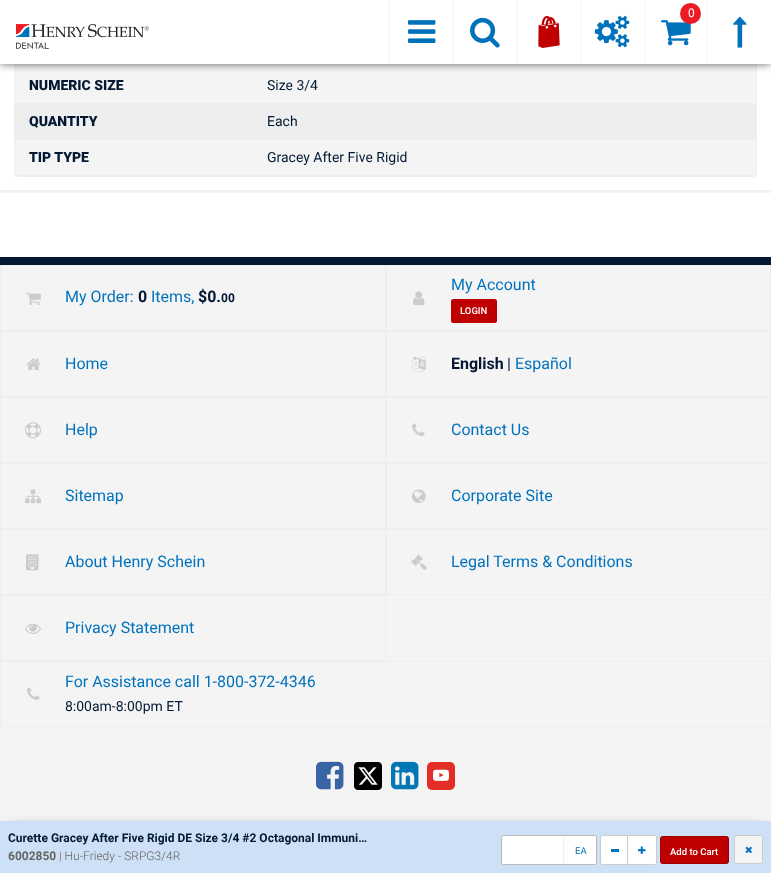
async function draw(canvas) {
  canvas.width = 771
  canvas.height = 873
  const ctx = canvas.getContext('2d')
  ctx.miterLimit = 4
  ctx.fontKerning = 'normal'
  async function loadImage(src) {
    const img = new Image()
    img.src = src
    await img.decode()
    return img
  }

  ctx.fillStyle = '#f4f4f4'
  ctx.fillRect(0, 0, 771, 873)
  ctx.fillStyle = '#fff'
  ctx.fillRect(0, 64, 771, 193)
  ctx.beginPath()
  ctx.roundRect(14.5, -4.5, 742, 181, 3.5)
  ctx.strokeStyle = '#eee'
  ctx.stroke()
  ctx.fillStyle = '#eee'
  ctx.fillRect(15, 64, 741, 4)
  ctx.fillStyle = '#f4f4f4'
  ctx.fillRect(15, 68, 741, 35)
  ctx.fillStyle = '#666'
  ctx.filter = 'blur(4px)'
  ctx.beginPath()
  ctx.rect(0, 0, 771, 64)
  ctx.fill()
  ctx.filter = 'none'
  ctx.fillStyle = '#fff'
  ctx.fillRect(0, 0, 771, 64)
  ctx.fillStyle = '#f4f4f4'
  ctx.fillRect(389, 0, 1, 64)
  ctx.drawImage(await loadImage('image0.png'), 408, 20, 28, 23)
  ctx.fillRect(453, 0, 1, 64)
  ctx.drawImage(await loadImage('image1.png'), 470, 17, 30, 31)
  ctx.fillRect(517, 0, 1, 64)
  ctx.drawImage(await loadImage('image2.png'), 538, 16, 22, 32)
  ctx.fillRect(580, 0, 1, 64)
  ctx.drawImage(await loadImage('image3.png'), 595, 15, 35, 33)
  ctx.fillRect(644, 0, 1, 64)
  ctx.drawImage(await loadImage('image4.png'), 661, 20, 30, 26)
  ctx.fillStyle = '#ed1c24'
  ctx.beginPath()
  ctx.arc(690.5, 13.5, 10.5, 0, 2 * Math.PI)
  ctx.fill()
  ctx.font = '12px Roboto'
  ctx.fillStyle = '#fff'
  ctx.fillText('0', 688, 17)
  ctx.fillStyle = '#f4f4f4'
  ctx.fillRect(707, 0, 1, 64)
  ctx.drawImage(await loadImage('image5.png'), 733, 16, 14, 32)
  ctx.drawImage(await loadImage('image6.png'), 16, 24, 133, 25)
  ctx.fillStyle = '#eee'
  ctx.fillRect(15, 103, 741, 37)
  ctx.font = '900 14px Roboto'
  ctx.fillStyle = '#031933'
  ctx.fillText('NUMERIC SIZE', 29, 90)
  ctx.font = '14px Roboto'
  ctx.fillText('Size 3/4', 267, 90)
  ctx.font = '900 14px Roboto'
  ctx.fillText('QUANTITY', 29, 126)
  ctx.font = '14px Roboto'
  ctx.fillText('Each', 267, 126)
  ctx.fillStyle = '#f4f4f4'
  ctx.fillRect(15, 140, 741, 35)
  ctx.fillStyle = '#eee'
  ctx.fillRect(15, 175, 741, 1)
  ctx.font = '900 14px Roboto'
  ctx.fillStyle = '#031933'
  ctx.fillText('TIP TYPE', 29, 162)
  ctx.font = '14px Roboto'
  ctx.fillText('Gracey After Five Rigid', 267, 162)
  ctx.fillStyle = '#eee'
  ctx.fillRect(0, 190, 771, 1)
  ctx.fillStyle = '#f4f4f4'
  ctx.fillRect(0, 191, 771, 2)
  ctx.fillStyle = '#031933'
  ctx.fillRect(0, 257, 771, 8)
  ctx.strokeRect(0.5, 265.5, 385, 65)
  ctx.drawImage(await loadImage('image7.png'), 26, 292, 15, 13)
  ctx.font = '16px Roboto'
  ctx.fillStyle = '#0072bc'
  ctx.fillText('My Order:', 65, 302)
  ctx.font = 'bold 16px Roboto'
  ctx.fillStyle = '#031933'
  ctx.fillText('0', 138, 302)
  ctx.font = '16px Roboto'
  ctx.fillStyle = '#0072bc'
  ctx.fillText('Items,', 151, 302)
  ctx.font = 'bold 16px Roboto'
  ctx.fillStyle = '#031933'
  ctx.fillText('$0.', 198, 302)
  ctx.font = 'bold 12px Roboto'
  ctx.fillText('00', 221, 302)
  ctx.strokeRect(386.5, 265.5, 384, 65)
  ctx.drawImage(await loadImage('image8.png'), 413, 291, 12, 15)
  ctx.font = '16px Roboto'
  ctx.fillStyle = '#0072bc'
  ctx.fillText('My Account', 451, 290)
  ctx.fillStyle = '#bf0000'
  ctx.beginPath()
  ctx.roundRect(451, 299, 46, 24, 2.5)
  ctx.fill()
  ctx.font = '500 9.5px Roboto'
  ctx.fillStyle = '#fff'
  ctx.fillText('LOGIN', 460, 314)
  ctx.strokeRect(0.5, 331.5, 385, 65)
  ctx.drawImage(await loadImage('image9.png'), 26, 358, 15, 12)
  ctx.font = '16px Roboto'
  ctx.fillStyle = '#0072bc'
  ctx.fillText('Home', 65, 369)
  ctx.strokeRect(386.5, 331.5, 384, 65)
  ctx.drawImage(await loadImage('image10.png'), 412, 356, 14, 17)
  ctx.font = 'bold 16px Roboto'
  ctx.fillStyle = '#031933'
  ctx.fillText('English', 451, 369)
  ctx.font = '16px Roboto'
  ctx.fillText('|', 507, 369)
  ctx.fillStyle = '#0072bc'
  ctx.fillText('Español', 515, 369)
  ctx.strokeRect(0.5, 397.5, 385, 65)
  ctx.drawImage(await loadImage('image11.png'), 25, 422, 16, 17)
  ctx.fillText('Help', 65, 435)
  ctx.strokeRect(386.5, 397.5, 384, 65)
  ctx.drawImage(await loadImage('image12.png'), 412, 423, 13, 13)
  ctx.fillText('Contact Us', 451, 435)
  ctx.strokeRect(0.5, 463.5, 385, 65)
  ctx.drawImage(await loadImage('image13.png'), 25, 489, 16, 15)
  ctx.fillText('Sitemap', 65, 501)
  ctx.strokeRect(386.5, 463.5, 384, 65)
  ctx.drawImage(await loadImage('image14.png'), 412, 489, 14, 14)
  ctx.fillText('Corporate Site', 451, 501)
  ctx.strokeRect(0.5, 529.5, 385, 65)
  ctx.drawImage(await loadImage('image15.png'), 26, 554, 13, 17)
  ctx.fillText('About Henry Schein', 65, 567)
  ctx.strokeRect(386.5, 529.5, 384, 65)
  ctx.drawImage(await loadImage('image16.png'), 411, 554, 16, 16)
  ctx.fillText('Legal Terms & Conditions', 451, 567)
  ctx.strokeRect(0.5, 595.5, 385, 65)
  ctx.drawImage(await loadImage('image17.png'), 25, 623, 16, 11)
  ctx.fillText('Privacy Statement', 65, 633)
  ctx.strokeRect(0.5, 661.5, 770, 65)
  ctx.drawImage(await loadImage('image12.png'), 27, 687, 13, 13)
  ctx.fillText('For Assistance call 1-800-372-4346', 65, 687)
  ctx.font = '14px Roboto'
  ctx.fillStyle = '#031933'
  ctx.fillText('8:00am-8:00pm ET', 65, 711)
  ctx.drawImage(await loadImage('image18.png'), 316, 761, 28, 29)
  ctx.drawImage(await loadImage('image19.png'), 354, 762, 28, 28)
  ctx.drawImage(await loadImage('image20.png'), 391, 761, 28, 29)
  ctx.fillStyle = '#e52d27'
  ctx.beginPath()
  ctx.roundRect(427, 762, 28, 28, 5)
  ctx.fill()
  ctx.drawImage(await loadImage('image21.png'), 433, 769, 16, 12)
  ctx.fillStyle = '#031933'
  ctx.filter = 'blur(6px)'
  ctx.beginPath()
  ctx.rect(8, 829, 755, 36)
  ctx.fill()
  ctx.filter = 'none'
  ctx.fillStyle = '#cee0f5'
  ctx.fillRect(0, 821, 771, 52)
  ctx.font = 'bold 12px Roboto'
  ctx.fillStyle = '#031933'
  ctx.fillText('Curette Gracey After Five Rigid DE Size 3/4 #2 Octagonal Immuni…', 8, 842)
  ctx.fillStyle = '#666'
  ctx.fillText('6002850', 8, 860)
  ctx.font = '300 12px Roboto'
  ctx.fillText('| Hu-Friedy - SRPG3/4R', 59, 860)
  ctx.fillStyle = '#fff'
  ctx.beginPath()
  ctx.roundRect(501.5, 835.5, 95, 29, 2)
  ctx.fill()
  ctx.strokeStyle = '#b8b8b8'
  ctx.stroke()
  ctx.fillStyle = '#eee'
  ctx.fillRect(563, 837, 1, 27)
  ctx.font = '9.5px Roboto'
  ctx.fillStyle = '#0072bc'
  ctx.fillText('EA', 575, 854)
  ctx.fillStyle = '#fff'
  ctx.beginPath()
  ctx.roundRect(600.5, 835.5, 27, 29, [2, 0, 0, 2])
  ctx.fill()
  ctx.strokeStyle = '#ccc'
  ctx.stroke()
  ctx.fillStyle = '#0072bc'
  ctx.fillRect(611, 849, 8, 3)
  ctx.fillStyle = '#fff'
  ctx.beginPath()
  ctx.roundRect(628, 835, 29, 30, [0, 2.5, 2.5, 0])
  ctx.fill()
  ctx.fillStyle = '#ccc'
  ctx.beginPath()
  ctx.moveTo(628, 835)
  ctx.lineTo(654.5, 835)
  ctx.bezierCurveTo(656, 835, 657, 836, 657, 837.5)
  ctx.lineTo(657, 862.5)
  ctx.bezierCurveTo(657, 864, 656, 865, 654.5, 865)
  ctx.lineTo(628, 865)
  ctx.closePath()
  ctx.moveTo(628, 836)
  ctx.lineTo(654.5, 836)
  ctx.bezierCurveTo(655.5, 836, 656, 836.5, 656, 837.5)
  ctx.lineTo(656, 862.5)
  ctx.bezierCurveTo(656, 863.5, 655.5, 864, 654.5, 864)
  ctx.lineTo(628, 864)
  ctx.closePath()
  ctx.fill('evenodd')
  ctx.drawImage(await loadImage('image22.png'), 638, 846, 8, 8)
  ctx.fillStyle = '#bf0000'
  ctx.beginPath()
  ctx.roundRect(660.5, 836.5, 68, 27, 2)
  ctx.fill()
  ctx.strokeStyle = '#900'
  ctx.stroke()
  ctx.font = '500 9.5px Roboto'
  ctx.fillStyle = '#fff'
  ctx.fillText('Add to Cart', 670, 855)
  ctx.fillStyle = '#f4f4f4'
  ctx.beginPath()
  ctx.roundRect(734.5, 835.5, 28, 28, 2)
  ctx.fill()
  ctx.strokeStyle = '#ccc'
  ctx.stroke()
  ctx.drawImage(await loadImage('image23.png'), 745, 846, 7, 7)
}

draw(document.querySelector('canvas'))
